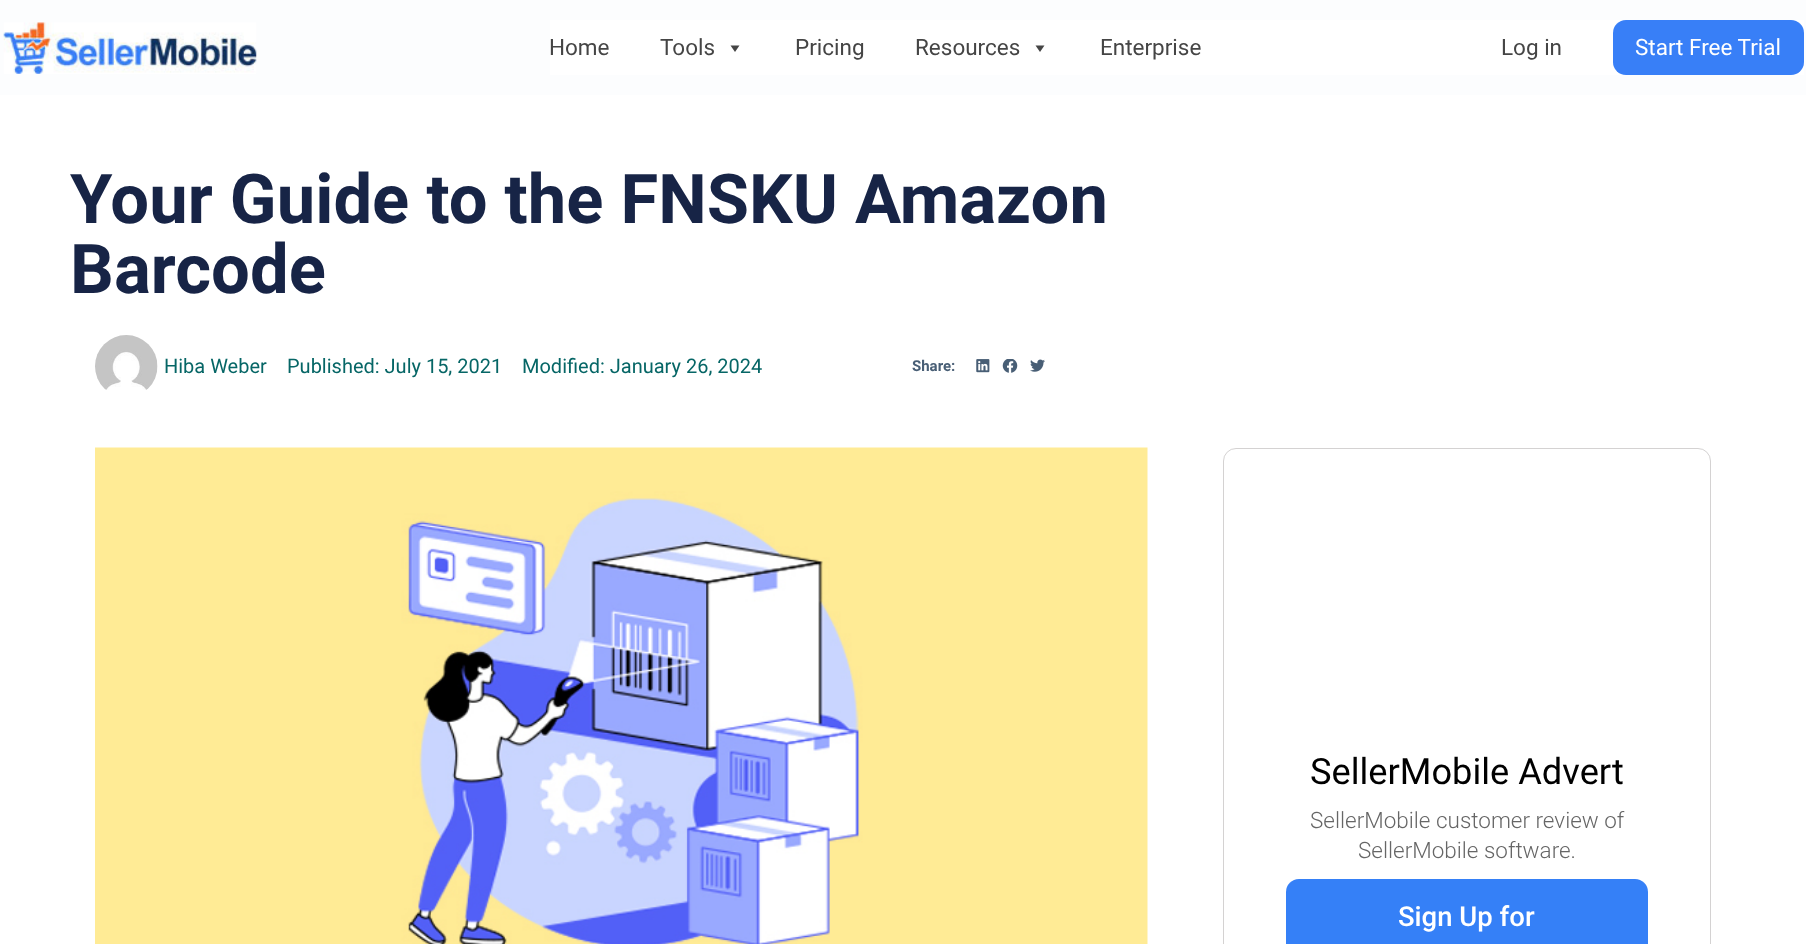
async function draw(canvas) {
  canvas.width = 1806
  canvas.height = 944
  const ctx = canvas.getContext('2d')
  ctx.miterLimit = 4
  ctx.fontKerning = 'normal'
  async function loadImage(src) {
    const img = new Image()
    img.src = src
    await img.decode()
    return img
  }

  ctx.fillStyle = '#fff'
  ctx.fillRect(0, 0, 1806, 944)
  ctx.fillStyle = '#fcfdfe'
  ctx.fillRect(0, 0, 1806, 95)
  ctx.drawImage(await loadImage('image0.png'), 3, 22, 254, 52)
  ctx.fillStyle = '#fff'
  ctx.fillRect(550, 20, 1254, 55)
  ctx.font = '22.5px Roboto'
  ctx.fillStyle = '#454545'
  ctx.fillText('Home', 549, 55)
  ctx.fillText('Tools', 660, 55)
  ctx.beginPath()
  ctx.moveTo(739.5, 45.5)
  ctx.lineTo(735, 52)
  ctx.lineTo(730.5, 45.5)
  ctx.closePath()
  ctx.fill()
  ctx.fillText('Pricing', 795, 55)
  ctx.fillText('Resources', 915, 55)
  ctx.beginPath()
  ctx.moveTo(1044.5, 45.5)
  ctx.lineTo(1040, 52)
  ctx.lineTo(1035.5, 45.5)
  ctx.closePath()
  ctx.fill()
  ctx.fillText('Enterprise', 1100, 55)
  ctx.fillText('Log in', 1501, 55)
  ctx.fillStyle = '#387ff7'
  ctx.beginPath()
  ctx.roundRect(1613, 20, 191, 55, 13)
  ctx.fill()
  ctx.fillStyle = '#fff'
  ctx.fillText('Start Free Trial', 1635, 55)
  ctx.font = 'bold 68.75px Roboto'
  ctx.fillStyle = '#172446'
  ctx.fillText('Your Guide to the FNSKU Amazon', 70, 223)
  ctx.fillText('Barcode', 70, 293)
  ctx.drawImage(await loadImage('image1.png'), 95, 335, 63, 55)
  ctx.font = '20px Roboto'
  ctx.fillStyle = '#066666'
  ctx.fillText('Hiba Weber', 164, 373)
  ctx.fillText('Published: July 15, 2021', 287, 373)
  ctx.fillText('Modified: January 26, 2024', 522, 373)
  ctx.font = 'bold 15px Roboto'
  ctx.fillStyle = '#485e75'
  ctx.fillText('Share:', 912, 371)
  ctx.drawImage(await loadImage('image2.png'), 976, 359, 14, 14)
  ctx.drawImage(await loadImage('image3.png'), 1002, 359, 16, 14)
  ctx.drawImage(await loadImage('image4.png'), 1030, 359, 15, 13)
  ctx.drawImage(await loadImage('image5.png'), 95, 447, 1053, 497)
  ctx.beginPath()
  ctx.roundRect(1223.5, 448.5, 487, 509, 12.5)
  ctx.strokeStyle = '#d4d2d2'
  ctx.stroke()
  ctx.font = '36.25px Roboto'
  ctx.fillStyle = '#000'
  ctx.fillText('SellerMobile Advert', 1310, 784)
  ctx.font = '300 22.5px Roboto'
  ctx.fillStyle = '#666'
  ctx.fillText('SellerMobile customer review of', 1310, 828)
  ctx.fillText('SellerMobile software.', 1358, 858)
  ctx.fillStyle = '#3580f7'
  ctx.beginPath()
  ctx.roundRect(1286, 879, 362, 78, 13)
  ctx.fill()
  ctx.font = '500 27.5px Roboto'
  ctx.fillStyle = '#fff'
  ctx.fillText('Sign Up for', 1398, 926)
}

draw(document.querySelector('canvas'))
